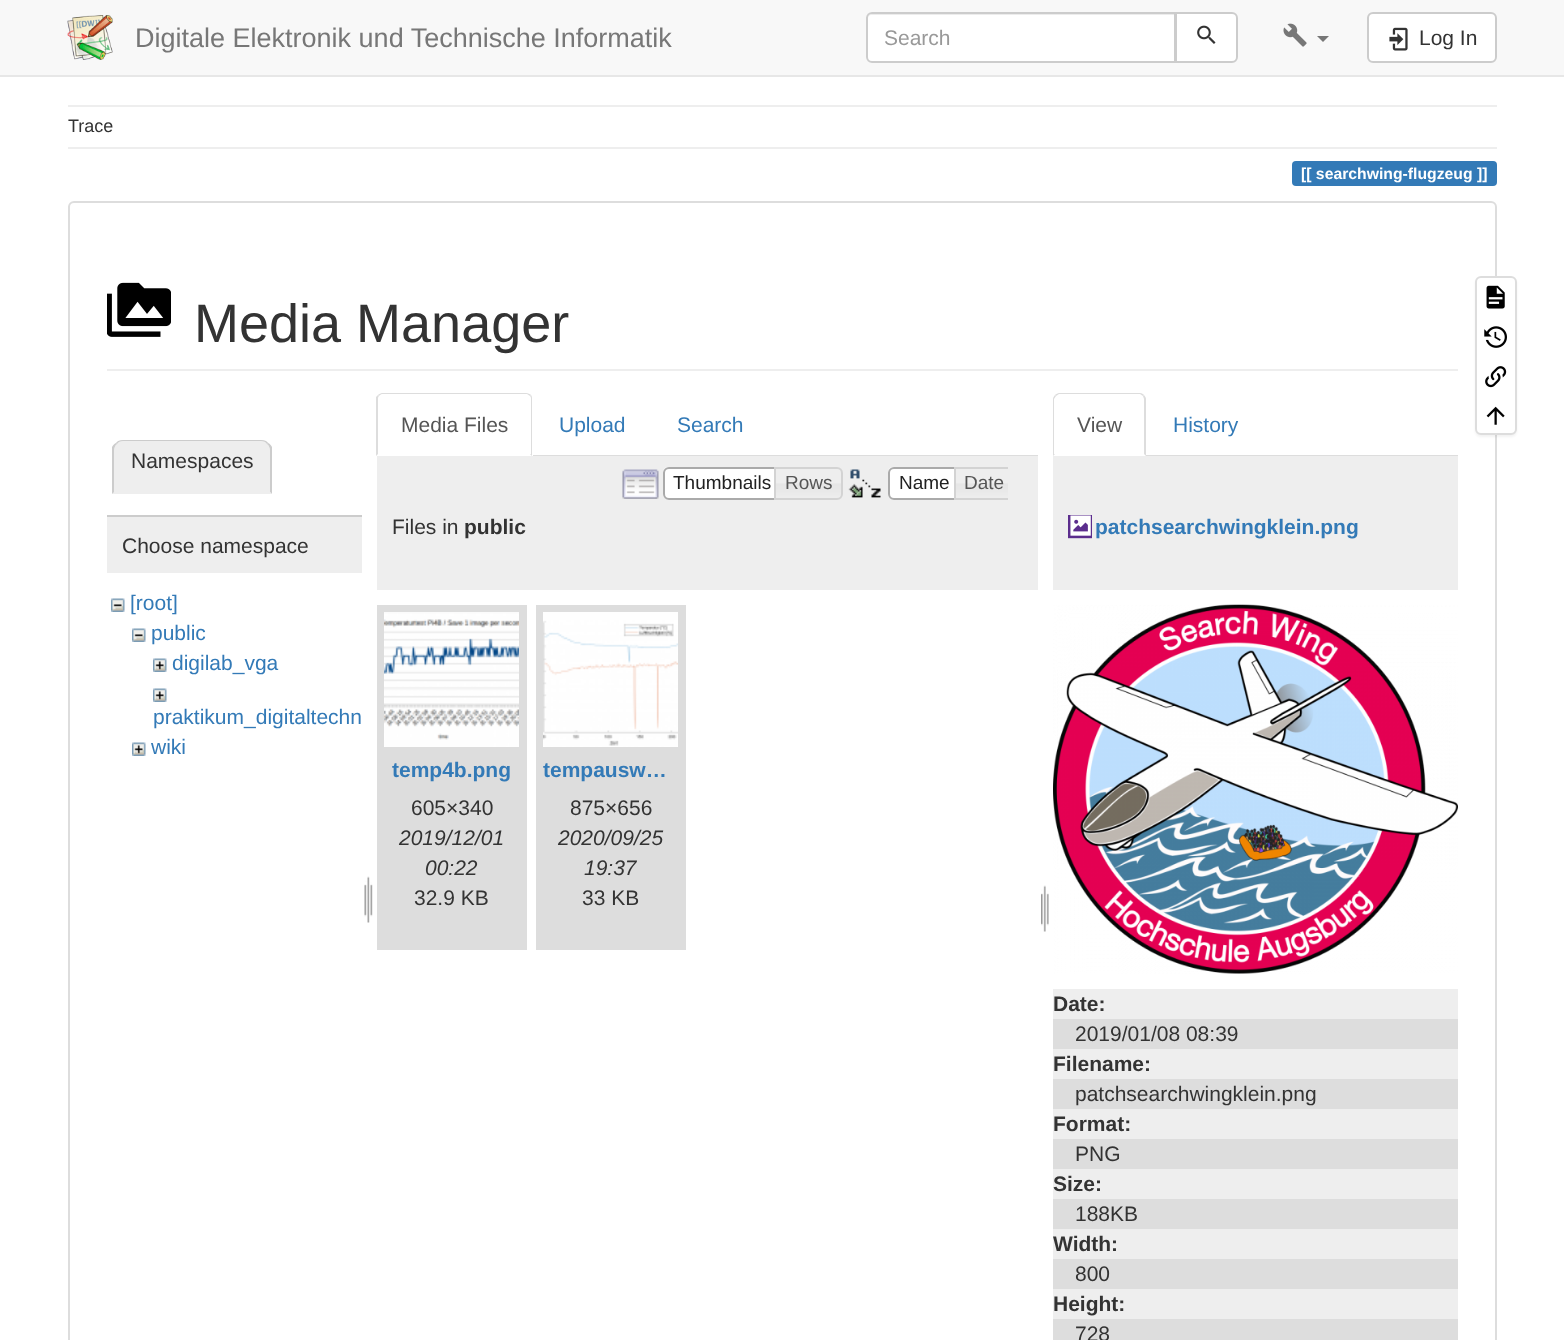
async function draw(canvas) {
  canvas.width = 1564
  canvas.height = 1340
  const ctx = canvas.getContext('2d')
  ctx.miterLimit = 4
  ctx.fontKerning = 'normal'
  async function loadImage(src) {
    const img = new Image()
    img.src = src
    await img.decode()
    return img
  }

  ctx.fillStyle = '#fff'
  ctx.fillRect(0, 0, 1564, 1340)
  ctx.fillStyle = '#f8f8f8'
  ctx.fillRect(0, 0, 1564, 75)
  ctx.fillStyle = '#e7e7e7'
  ctx.fillRect(0, 75, 1564, 2)
  ctx.drawImage(await loadImage('image0.png'), 67, 15, 46, 45)
  ctx.font = '27px Liberation Sans'
  ctx.fillStyle = '#777'
  ctx.fillText('Digitale Elektronik und Technische Informatik', 135, 47)
  ctx.fillStyle = '#fff'
  ctx.beginPath()
  ctx.roundRect(866, 12, 310, 51, [6, 0, 0, 6])
  ctx.fill()
  ctx.fillStyle = '#ececec'
  ctx.beginPath()
  ctx.moveTo(872, 15)
  ctx.lineTo(1174, 15)
  ctx.lineTo(1174, 62)
  ctx.lineTo(1175, 62)
  ctx.lineTo(1175, 14)
  ctx.lineTo(872, 14)
  ctx.bezierCurveTo(869, 14, 867, 17, 867, 20)
  ctx.bezierCurveTo(867, 17, 869, 15, 872, 15)
  ctx.closePath()
  ctx.fill()
  ctx.beginPath()
  ctx.roundRect(867, 13, 308, 49, [5, 0, 0, 5])
  ctx.strokeStyle = '#ccc'
  ctx.lineWidth = 2
  ctx.stroke()
  ctx.font = '21px Liberation Sans'
  ctx.fillStyle = '#999'
  ctx.fillText('Search', 884, 45)
  ctx.fillStyle = '#fff'
  ctx.beginPath()
  ctx.roundRect(1176, 13, 61, 49, [0, 5, 5, 0])
  ctx.fill()
  ctx.stroke()
  ctx.drawImage(await loadImage('image1.png'), 1197, 25, 19, 19)
  ctx.drawImage(await loadImage('image2.png'), 1283, 23, 24, 24)
  ctx.fillStyle = '#777'
  ctx.beginPath()
  ctx.moveTo(1317, 36)
  ctx.lineTo(1329, 36)
  ctx.lineTo(1323, 42)
  ctx.closePath()
  ctx.fill()
  ctx.fillStyle = '#fff'
  ctx.beginPath()
  ctx.roundRect(1368, 13, 128, 49, 5)
  ctx.fill()
  ctx.stroke()
  ctx.drawImage(await loadImage('image3.png'), 1389, 27, 19, 24)
  ctx.fillStyle = '#333'
  ctx.fillText('Log In', 1419, 45)
  ctx.fillStyle = '#eee'
  ctx.fillRect(68, 105, 1429, 2)
  ctx.font = '18px Liberation Sans'
  ctx.fillStyle = '#333'
  ctx.fillText('Trace', 68, 132)
  ctx.fillStyle = '#eee'
  ctx.fillRect(68, 147, 1429, 2)
  ctx.fillStyle = '#337ab7'
  ctx.beginPath()
  ctx.roundRect(1292, 161, 24, 25, [4, 0, 0, 4])
  ctx.fill()
  ctx.fillRect(1316, 161, 157, 25)
  ctx.beginPath()
  ctx.roundRect(1473, 161, 24, 25, [0, 4, 4, 0])
  ctx.fill()
  ctx.font = 'bold 15.75px Liberation Sans'
  ctx.fillStyle = '#fff'
  ctx.fillText('[[ searchwing-flugzeug ]]', 1301, 179)
  ctx.beginPath()
  ctx.roundRect(69, 202, 1427, 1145, 5)
  ctx.strokeStyle = '#ddd'
  ctx.stroke()
  ctx.fillStyle = '#eee'
  ctx.fillRect(107, 369, 1351, 2)
  ctx.drawImage(await loadImage('image4.png'), 107, 282, 64, 55)
  ctx.font = '54px Liberation Sans'
  ctx.fillStyle = '#333'
  ctx.fillText('Media Manager', 194, 342)
  ctx.fillStyle = '#eee'
  ctx.beginPath()
  ctx.roundRect(113, 440, 159, 54, [11, 11, 0, 0])
  ctx.fill()
  ctx.fillStyle = '#ccc'
  ctx.beginPath()
  ctx.moveTo(123, 440)
  ctx.bezierCurveTo(120, 440, 117, 441, 116, 443)
  ctx.lineTo(117, 444)
  ctx.bezierCurveTo(118, 442, 120, 441, 123, 441)
  ctx.lineTo(261, 441)
  ctx.bezierCurveTo(264, 441, 266, 442, 267, 444)
  ctx.lineTo(268, 443)
  ctx.bezierCurveTo(267, 441, 264, 440, 261, 440)
  ctx.closePath()
  ctx.fill()
  ctx.beginPath()
  ctx.moveTo(268, 443)
  ctx.bezierCurveTo(270, 444, 271, 445, 272, 447)
  ctx.lineTo(272, 494)
  ctx.lineTo(270, 492)
  ctx.lineTo(270, 450)
  ctx.bezierCurveTo(270, 448, 269, 445, 267, 444)
  ctx.closePath()
  ctx.fill()
  ctx.fillStyle = '#eee'
  ctx.beginPath()
  ctx.moveTo(272, 494)
  ctx.lineTo(270, 492)
  ctx.lineTo(114, 492)
  ctx.lineTo(112, 494)
  ctx.closePath()
  ctx.fill()
  ctx.fillStyle = '#ccc'
  ctx.beginPath()
  ctx.moveTo(112, 494)
  ctx.lineTo(114, 492)
  ctx.lineTo(114, 450)
  ctx.bezierCurveTo(114, 448, 115, 445, 117, 444)
  ctx.lineTo(116, 443)
  ctx.bezierCurveTo(114, 444, 113, 445, 112, 447)
  ctx.closePath()
  ctx.fill()
  ctx.font = '21px Liberation Sans'
  ctx.fillStyle = '#333'
  ctx.fillText('Namespaces', 131, 468)
  ctx.fillStyle = '#eee'
  ctx.fillRect(107, 517, 255, 56)
  ctx.fillStyle = '#ccc'
  ctx.fillRect(107, 515, 255, 2)
  ctx.fillStyle = '#333'
  ctx.fillText('Choose namespace', 122, 553)
  ctx.drawImage(await loadImage('image5.png'), 111, 598, 14, 14)
  ctx.fillStyle = '#337ab7'
  ctx.fillText('[root]', 130, 610)
  ctx.drawImage(await loadImage('image5.png'), 132, 628, 14, 14)
  ctx.fillText('public', 151, 640)
  ctx.drawImage(await loadImage('image6.png'), 153, 658, 14, 14)
  ctx.fillText('digilab_vga', 172, 670)
  ctx.drawImage(await loadImage('image6.png'), 153, 688, 14, 14)
  ctx.fillText('praktikum_digitaltechn', 153, 724)
  ctx.drawImage(await loadImage('image6.png'), 132, 742, 14, 14)
  ctx.fillText('wiki', 151, 754)
  ctx.drawImage(await loadImage('image7.png'), 364, 876, 9, 47)
  ctx.fillStyle = '#ddd'
  ctx.fillRect(533, 455, 505, 1)
  ctx.beginPath()
  ctx.moveTo(382, 393)
  ctx.bezierCurveTo(381, 393, 379, 394, 378, 395)
  ctx.lineTo(379, 396)
  ctx.bezierCurveTo(380, 395, 381, 394, 382, 394)
  ctx.lineTo(527, 394)
  ctx.lineTo(530, 396)
  ctx.lineTo(531, 395)
  ctx.bezierCurveTo(530, 394, 528, 393, 526, 393)
  ctx.closePath()
  ctx.fill()
  ctx.beginPath()
  ctx.moveTo(531, 395)
  ctx.bezierCurveTo(532, 396, 532, 398, 532, 399)
  ctx.lineTo(532, 456)
  ctx.lineTo(530, 454)
  ctx.lineTo(531, 454)
  ctx.lineTo(531, 399)
  ctx.bezierCurveTo(531, 398, 531, 397, 530, 396)
  ctx.closePath()
  ctx.fill()
  ctx.beginPath()
  ctx.moveTo(376, 456)
  ctx.lineTo(376, 397)
  ctx.lineTo(378, 395)
  ctx.lineTo(379, 396)
  ctx.bezierCurveTo(378, 397, 378, 398, 378, 399)
  ctx.lineTo(378, 454)
  ctx.closePath()
  ctx.fill()
  ctx.fillStyle = '#555'
  ctx.fillText('Media Files', 401, 432)
  ctx.fillStyle = '#337ab7'
  ctx.fillText('Upload', 559, 432)
  ctx.fillText('Search', 677, 432)
  ctx.fillStyle = '#eee'
  ctx.fillRect(377, 456, 661, 134)
  ctx.drawImage(await loadImage('image8.png'), 622, 469, 37, 30)
  ctx.fillStyle = '#fff'
  ctx.beginPath()
  ctx.roundRect(663, 467, 119, 33, [6, 0, 0, 6])
  ctx.fill()
  ctx.drawImage(await loadImage('image9.png'), 663, 467, 4, 4)
  ctx.beginPath()
  ctx.roundRect(664, 468, 117, 31, [5, 0, 0, 5])
  ctx.strokeStyle = '#aaa'
  ctx.stroke()
  ctx.font = '19px Liberation Sans'
  ctx.fillStyle = '#212121'
  ctx.fillText('Thumbnails', 673, 489)
  ctx.drawImage(await loadImage('image10.png'), 776, 467, 67, 32)
  ctx.beginPath()
  ctx.roundRect(775, 468, 67, 31, [0, 5, 5, 0])
  ctx.strokeStyle = '#d3d3d3'
  ctx.stroke()
  ctx.fillStyle = '#555'
  ctx.fillText('Rows', 785, 489)
  ctx.drawImage(await loadImage('image11.png'), 848, 469, 33, 29)
  ctx.fillStyle = '#fff'
  ctx.beginPath()
  ctx.roundRect(888, 467, 74, 33, [6, 0, 0, 6])
  ctx.fill()
  ctx.drawImage(await loadImage('image9.png'), 888, 467, 4, 4)
  ctx.beginPath()
  ctx.roundRect(889, 468, 72, 31, [5, 0, 0, 5])
  ctx.strokeStyle = '#aaa'
  ctx.stroke()
  ctx.fillStyle = '#212121'
  ctx.fillText('Name', 899, 489)
  ctx.drawImage(await loadImage('image12.png'), 956, 469, 52, 29)
  ctx.save()
  ctx.beginPath()
  ctx.rect(611, 467, 397, 33)
  ctx.clip()
  ctx.beginPath()
  ctx.roundRect(955, 468, 60, 31, [0, 5, 5, 0])
  ctx.strokeStyle = '#d3d3d3'
  ctx.stroke()
  ctx.restore()
  ctx.fillStyle = '#555'
  ctx.fillText('Date', 964, 489)
  ctx.font = '21px Liberation Sans'
  ctx.fillStyle = '#333'
  ctx.fillText('Files in', 392, 534)
  ctx.font = 'bold 21px Liberation Sans'
  ctx.fillText('public', 464, 534)
  ctx.fillStyle = '#ddd'
  ctx.fillRect(377, 605, 150, 345)
  ctx.drawImage(await loadImage('image13.png'), 384, 612, 135, 135)
  ctx.fillStyle = '#337ab7'
  ctx.fillText('temp4b.png', 392, 777)
  ctx.font = '21px Liberation Sans'
  ctx.fillStyle = '#333'
  ctx.fillText('605×340', 411, 815)
  ctx.font = 'italic 21px Liberation Sans'
  ctx.fillText('2019/12/01', 399, 845)
  ctx.fillText('00:22', 425, 875)
  ctx.font = '21px Liberation Sans'
  ctx.fillText('32.9 KB', 414, 905)
  ctx.fillStyle = '#ddd'
  ctx.fillRect(536, 605, 150, 345)
  ctx.drawImage(await loadImage('image14.png'), 543, 612, 135, 135)
  ctx.font = 'bold 21px Liberation Sans'
  ctx.fillStyle = '#337ab7'
  ctx.fillText('tempausw…', 543, 777)
  ctx.font = '21px Liberation Sans'
  ctx.fillStyle = '#333'
  ctx.fillText('875×656', 570, 815)
  ctx.font = 'italic 21px Liberation Sans'
  ctx.fillText('2020/09/25', 558, 845)
  ctx.fillText('19:37', 584, 875)
  ctx.font = '21px Liberation Sans'
  ctx.fillText('33 KB', 582, 905)
  ctx.drawImage(await loadImage('image15.png'), 1041, 885, 8, 47)
  ctx.fillStyle = '#ddd'
  ctx.fillRect(1146, 455, 312, 1)
  ctx.beginPath()
  ctx.moveTo(1059, 393)
  ctx.bezierCurveTo(1058, 393, 1056, 394, 1055, 395)
  ctx.lineTo(1056, 396)
  ctx.lineTo(1059, 394)
  ctx.lineTo(1140, 394)
  ctx.lineTo(1143, 396)
  ctx.lineTo(1144, 395)
  ctx.bezierCurveTo(1143, 394, 1142, 393, 1140, 393)
  ctx.closePath()
  ctx.fill()
  ctx.beginPath()
  ctx.moveTo(1146, 456)
  ctx.lineTo(1146, 399)
  ctx.bezierCurveTo(1146, 398, 1145, 396, 1144, 395)
  ctx.lineTo(1143, 396)
  ctx.lineTo(1144, 399)
  ctx.lineTo(1144, 454)
  ctx.closePath()
  ctx.fill()
  ctx.beginPath()
  ctx.moveTo(1053, 456)
  ctx.lineTo(1055, 454)
  ctx.lineTo(1054, 454)
  ctx.lineTo(1054, 399)
  ctx.lineTo(1056, 396)
  ctx.lineTo(1055, 395)
  ctx.bezierCurveTo(1054, 396, 1053, 398, 1053, 399)
  ctx.closePath()
  ctx.fill()
  ctx.fillStyle = '#555'
  ctx.fillText('View', 1077, 432)
  ctx.fillStyle = '#337ab7'
  ctx.fillText('History', 1173, 432)
  ctx.fillStyle = '#eee'
  ctx.fillRect(1053, 456, 405, 134)
  ctx.drawImage(await loadImage('image16.png'), 1068, 515, 24, 24)
  ctx.font = 'bold 21px Liberation Sans'
  ctx.fillStyle = '#337ab7'
  ctx.fillText('patchsearchwingklein.png', 1095, 534)
  ctx.drawImage(await loadImage('image17.png'), 1053, 604, 405, 370)
  ctx.fillStyle = '#eee'
  ctx.fillRect(1053, 989, 405, 30)
  ctx.fillStyle = '#333'
  ctx.fillText('Date:', 1053, 1011)
  ctx.fillStyle = '#ddd'
  ctx.fillRect(1053, 1019, 405, 30)
  ctx.font = '21px Liberation Sans'
  ctx.fillStyle = '#333'
  ctx.fillText('2019/01/08 08:39', 1075, 1041)
  ctx.fillStyle = '#eee'
  ctx.fillRect(1053, 1049, 405, 30)
  ctx.font = 'bold 21px Liberation Sans'
  ctx.fillStyle = '#333'
  ctx.fillText('Filename:', 1053, 1071)
  ctx.fillStyle = '#ddd'
  ctx.fillRect(1053, 1079, 405, 30)
  ctx.font = '21px Liberation Sans'
  ctx.fillStyle = '#333'
  ctx.fillText('patchsearchwingklein.png', 1075, 1101)
  ctx.fillStyle = '#eee'
  ctx.fillRect(1053, 1109, 405, 30)
  ctx.font = 'bold 21px Liberation Sans'
  ctx.fillStyle = '#333'
  ctx.fillText('Format:', 1053, 1131)
  ctx.fillStyle = '#ddd'
  ctx.fillRect(1053, 1139, 405, 30)
  ctx.font = '21px Liberation Sans'
  ctx.fillStyle = '#333'
  ctx.fillText('PNG', 1075, 1161)
  ctx.fillStyle = '#eee'
  ctx.fillRect(1053, 1169, 405, 30)
  ctx.font = 'bold 21px Liberation Sans'
  ctx.fillStyle = '#333'
  ctx.fillText('Size:', 1053, 1191)
  ctx.fillStyle = '#ddd'
  ctx.fillRect(1053, 1199, 405, 30)
  ctx.font = '21px Liberation Sans'
  ctx.fillStyle = '#333'
  ctx.fillText('188KB', 1075, 1221)
  ctx.fillStyle = '#eee'
  ctx.fillRect(1053, 1229, 405, 30)
  ctx.font = 'bold 21px Liberation Sans'
  ctx.fillStyle = '#333'
  ctx.fillText('Width:', 1053, 1251)
  ctx.fillStyle = '#ddd'
  ctx.fillRect(1053, 1259, 405, 30)
  ctx.font = '21px Liberation Sans'
  ctx.fillStyle = '#333'
  ctx.fillText('800', 1075, 1281)
  ctx.fillStyle = '#eee'
  ctx.fillRect(1053, 1289, 405, 30)
  ctx.font = 'bold 21px Liberation Sans'
  ctx.fillStyle = '#333'
  ctx.fillText('Height:', 1053, 1311)
  ctx.fillStyle = '#ddd'
  ctx.fillRect(1053, 1319, 405, 21)
  ctx.font = '21px Liberation Sans'
  ctx.fillStyle = '#333'
  ctx.fillText('728', 1075, 1341)
  ctx.fillStyle = '#0000000d'
  ctx.filter = 'blur(1px)'
  ctx.beginPath()
  ctx.roundRect(1475, 278, 42, 159, 6)
  ctx.fill()
  ctx.filter = 'none'
  ctx.fillStyle = '#fff'
  ctx.beginPath()
  ctx.roundRect(1476, 277, 40, 157, 5)
  ctx.fill()
  ctx.strokeStyle = '#ddd'
  ctx.stroke()
  ctx.drawImage(await loadImage('image18.png'), 1486, 285, 19, 24)
  ctx.drawImage(await loadImage('image19.png'), 1484, 326, 23, 22)
  ctx.drawImage(await loadImage('image20.png'), 1485, 366, 22, 22)
  ctx.drawImage(await loadImage('image21.png'), 1486, 406, 19, 19)
}

draw(document.querySelector('canvas'))
